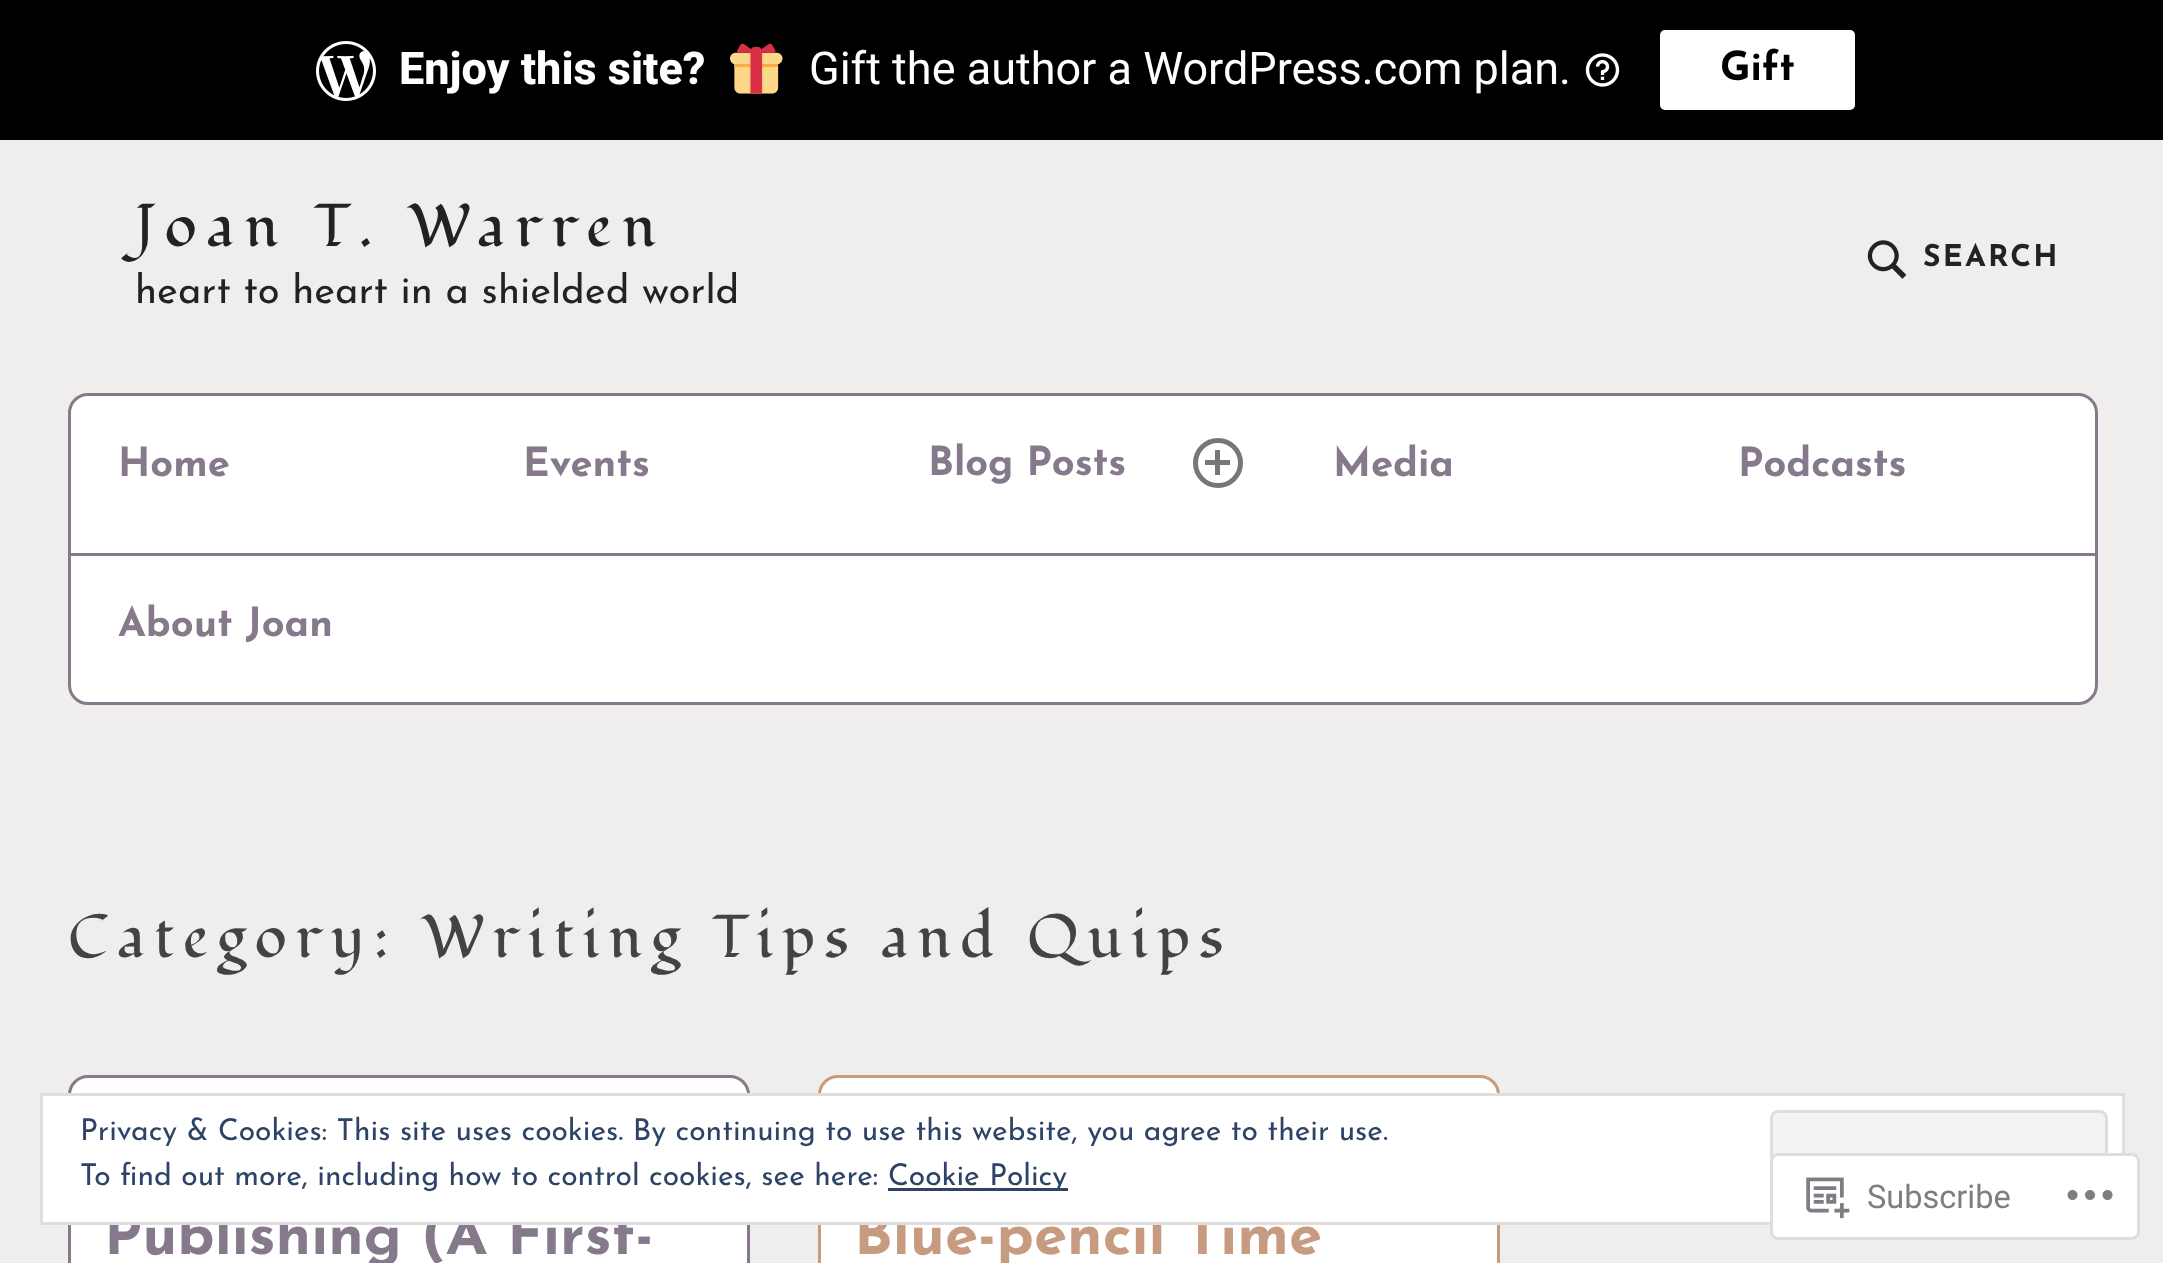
async function draw(canvas) {
  canvas.width = 2163
  canvas.height = 1263
  const ctx = canvas.getContext('2d')
  ctx.miterLimit = 4
  ctx.fontKerning = 'normal'
  async function loadImage(src) {
    const img = new Image()
    img.src = src
    await img.decode()
    return img
  }

  ctx.fillStyle = '#f0eeec'
  ctx.fillRect(0, 0, 2163, 1263)
  ctx.fillStyle = '#000'
  ctx.fillRect(0, 0, 2163, 140)
  ctx.drawImage(await loadImage('image0.png'), 316, 41, 60, 60)
  ctx.font = '800 45px Roboto'
  ctx.fillStyle = '#fff'
  ctx.fillText('Enjoy this site?', 399, 84)
  ctx.drawImage(await loadImage('image1.png'), 730, 43, 53, 51)
  ctx.font = '45px Roboto'
  ctx.fillText('Gift the author a WordPress.com plan.', 809, 84)
  ctx.drawImage(await loadImage('image2.png'), 1585, 53, 35, 34)
  ctx.beginPath()
  ctx.roundRect(1660, 30, 195, 80, 5)
  ctx.fill()
  ctx.font = 'bold 40px Josefin Sans'
  ctx.fillStyle = '#000'
  ctx.fillText('Gift', 1720, 80)
  ctx.letterSpacing = '10.5px'
  ctx.font = '60px Fondamento'
  ctx.fillStyle = '#222'
  ctx.fillText('Joan T. Warren', 135, 246)
  ctx.letterSpacing = '0px'
  ctx.font = '40px Josefin Sans'
  ctx.fillText('heart to heart in a shielded world', 135, 303)
  ctx.drawImage(await loadImage('image3.png'), 1867, 240, 40, 39)
  ctx.letterSpacing = '2.25px'
  ctx.font = 'bold 30px Josefin Sans'
  ctx.fillText('SEARCH', 1923, 266)
  ctx.fillStyle = '#fff'
  ctx.beginPath()
  ctx.roundRect(69.5, 394.5, 2027, 309, 18.5)
  ctx.fill()
  ctx.strokeStyle = '#85798b'
  ctx.lineWidth = 3
  ctx.stroke()
  ctx.letterSpacing = '0px'
  ctx.font = 'bold 40px Josefin Sans'
  ctx.fillStyle = '#85798b'
  ctx.fillText('Home', 118, 476)
  ctx.fillRect(68, 553, 2030, 3)
  ctx.fillText('Events', 523, 476)
  ctx.fillText('Blog Posts', 928, 475)
  ctx.beginPath()
  ctx.arc(1218, 463, 22.5, 0, 2 * Math.PI)
  ctx.strokeStyle = '#777'
  ctx.lineWidth = 5
  ctx.stroke()
  ctx.drawImage(await loadImage('image4.png'), 1205, 450, 25, 25)
  ctx.fillText('Media', 1333, 476)
  ctx.fillText('Podcasts', 1738, 476)
  ctx.fillText('About Joan', 118, 636)
  ctx.letterSpacing = '9px'
  ctx.font = '60px Fondamento'
  ctx.fillStyle = '#434343'
  ctx.fillText('Category: Writing Tips and Quips', 68, 957)
  ctx.fillStyle = '#fff'
  ctx.beginPath()
  ctx.roundRect(69.5, 1076.5, 679, 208, 18.5)
  ctx.fill()
  ctx.strokeStyle = '#85798b'
  ctx.lineWidth = 3
  ctx.stroke()
  ctx.letterSpacing = '0px'
  ctx.font = 'bold 60px Josefin Sans'
  ctx.fillStyle = '#85798b'
  ctx.fillText('Publishing (A First-', 104, 1254)
  ctx.fillStyle = '#fff'
  ctx.beginPath()
  ctx.roundRect(819.5, 1076.5, 679, 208, 18.5)
  ctx.fill()
  ctx.strokeStyle = '#c69b80'
  ctx.stroke()
  ctx.fillStyle = '#c69b80'
  ctx.fillText('Blue-pencil Time', 854, 1254)
  ctx.fillStyle = '#fff'
  ctx.beginPath()
  ctx.rect(41.5, 1094.5, 2082, 129)
  ctx.fill()
  ctx.strokeStyle = '#dedede'
  ctx.stroke()
  ctx.font = '30px Josefin Sans'
  ctx.fillStyle = '#2e4467'
  ctx.fillText('Privacy & Cookies: This site uses cookies. By continuing to use this website, you agree to their use.', 80, 1140)
  ctx.fillStyle = '#f3f3f3'
  ctx.beginPath()
  ctx.roundRect(1771.5, 1111.5, 335, 95, 6.5)
  ctx.fill()
  ctx.stroke()
  ctx.fillStyle = '#2e4467'
  ctx.fillText('To find out more, including how to control cookies, see here:', 80, 1185)
  ctx.fillRect(888, 1188, 180, 3)
  ctx.fillText('Cookie Policy', 888, 1185)
  ctx.fillStyle = '#fffffffa'
  ctx.beginPath()
  ctx.roundRect(1770, 1153, 370, 87, 8)
  ctx.fill()
  ctx.beginPath()
  ctx.roundRect(1771.5, 1154.5, 367, 84, 6.5)
  ctx.strokeStyle = '#dcdcdefa'
  ctx.stroke()
  ctx.drawImage(await loadImage('image5.png'), 1806, 1177, 44, 42)
  ctx.font = '32.5px Roboto'
  ctx.fillStyle = '#7b7f84'
  ctx.fillText('Subscribe', 1867, 1208)
  ctx.drawImage(await loadImage('image6.png'), 2067, 1190, 46, 10)
}

draw(document.querySelector('canvas'))
